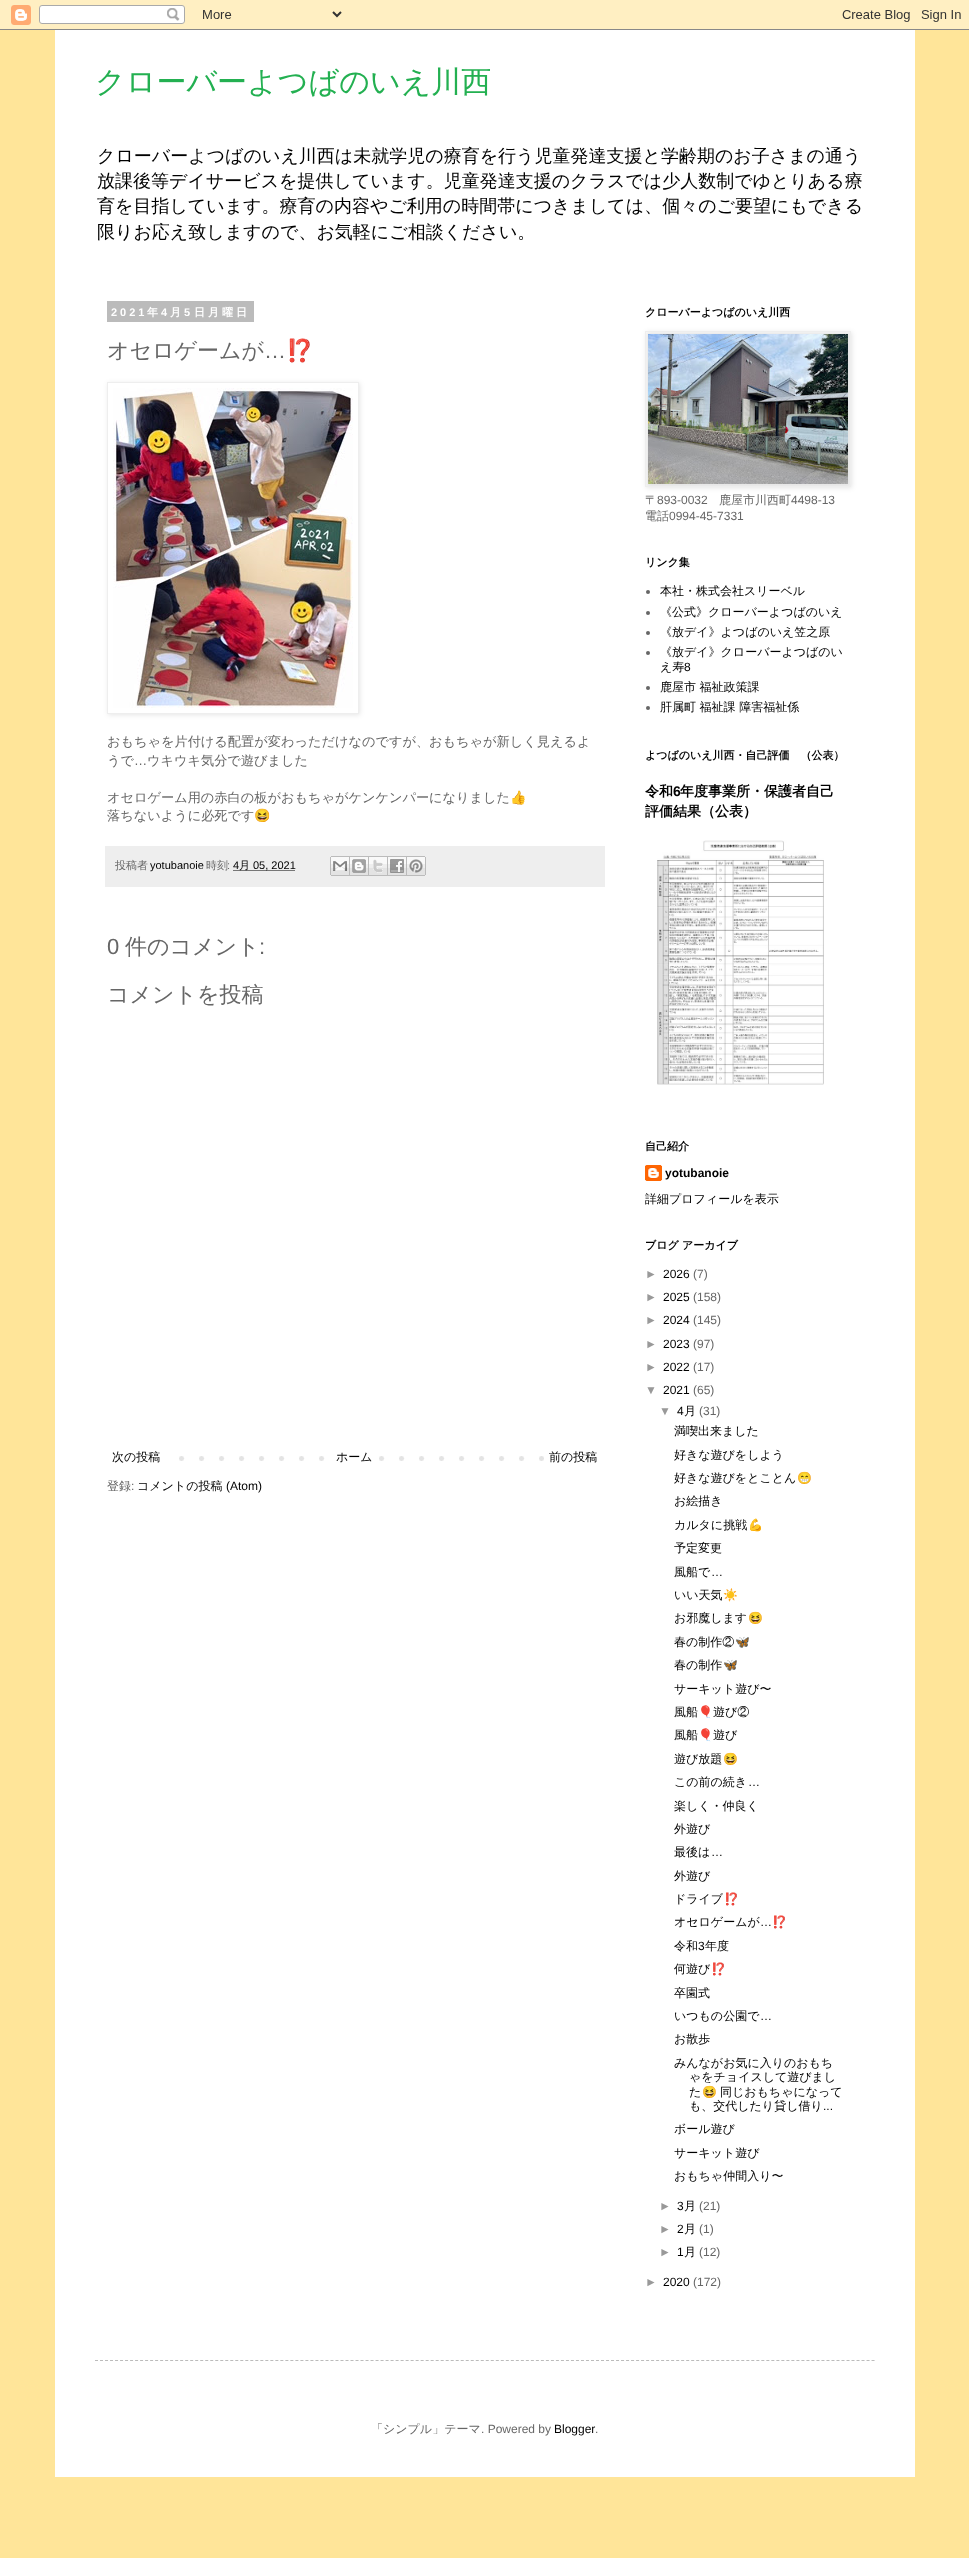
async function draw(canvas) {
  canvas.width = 969
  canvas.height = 2558
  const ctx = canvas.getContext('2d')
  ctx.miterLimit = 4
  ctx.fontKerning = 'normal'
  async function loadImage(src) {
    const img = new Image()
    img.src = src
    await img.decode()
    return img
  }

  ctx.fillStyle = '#ffe599'
  ctx.fillRect(0, 0, 969, 2558)
  ctx.drawImage(await loadImage('image0.png'), 0, 0, 969, 30)
  ctx.fillStyle = '#fff'
  ctx.fillRect(55, 30, 860, 2447)
  ctx.font = '500 30px WenQuanYi Zen Hei'
  ctx.fillStyle = '#23b051'
  ctx.fillText('クローバーよつばのいえ川西', 95, 92)
  ctx.font = '500 18px WenQuanYi Zen Hei'
  ctx.fillStyle = '#000'
  ctx.fillText('クローバーよつばのいえ川西は未就学児の療育を行う児童発達支援と学齢期のお子さまの通う', 97, 162)
  ctx.fillText('放課後等デイサービスを提供しています。児童発達支援のクラスでは少人数制でゆとりある療', 97, 187)
  ctx.fillText('育を目指しています。療育の内容やご利用の時間帯につきましては、個々のご要望にもできる', 97, 212)
  ctx.fillText('限りお応え致しますので、お気軽にご相談ください。', 97, 238)
  ctx.fillStyle = '#bbb'
  ctx.fillRect(107, 301, 147, 21)
  ctx.letterSpacing = '3px'
  ctx.font = 'bold 11px Liberation Sans'
  ctx.fillStyle = '#fff'
  ctx.fillText('2021', 111, 316)
  ctx.font = 'bold 11px WenQuanYi Zen Hei'
  ctx.fillText('年', 147, 316)
  ctx.font = 'bold 11px Liberation Sans'
  ctx.fillText('4', 161, 316)
  ctx.font = 'bold 11px WenQuanYi Zen Hei'
  ctx.fillText('月', 170, 316)
  ctx.font = 'bold 11px Liberation Sans'
  ctx.fillText('5', 184, 316)
  ctx.font = 'bold 11px WenQuanYi Zen Hei'
  ctx.fillText('日月曜日', 194, 316)
  ctx.letterSpacing = '0px'
  ctx.font = '500 22px WenQuanYi Zen Hei'
  ctx.fillStyle = '#666'
  ctx.fillText('オセロゲームが', 107, 358)
  ctx.font = '22px Liberation Sans'
  ctx.fillText('…', 264, 358)
  ctx.font = '22px Noto Color Emoji'
  ctx.fillText('⁉️', 286, 358)
  ctx.save()
  ctx.beginPath()
  ctx.moveTo(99, 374)
  ctx.lineTo(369, 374)
  ctx.lineTo(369, 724)
  ctx.lineTo(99, 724)
  ctx.closePath()
  ctx.moveTo(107, 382)
  ctx.lineTo(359, 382)
  ctx.lineTo(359, 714)
  ctx.lineTo(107, 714)
  ctx.closePath()
  ctx.clip('evenodd')
  ctx.fillStyle = '#0000001a'
  ctx.filter = 'blur(2.5px)'
  ctx.beginPath()
  ctx.rect(108, 383, 252, 332)
  ctx.fill()
  ctx.filter = 'none'
  ctx.restore()
  ctx.strokeStyle = '#eee'
  ctx.strokeRect(107.5, 382.5, 251, 331)
  ctx.drawImage(await loadImage('image1.png'), 113, 388, 240, 320)
  ctx.font = '500 13.2px WenQuanYi Zen Hei'
  ctx.fillText('おもちゃを片付ける配置が変わっただけなのですが、おもちゃが新しく見えるよ', 107, 746)
  ctx.fillText('うで', 107, 765)
  ctx.font = '13.2px Liberation Sans'
  ctx.fillText('…', 134, 765)
  ctx.font = '500 13.2px WenQuanYi Zen Hei'
  ctx.fillText('ウキウキ気分で遊びました', 147, 765)
  ctx.fillText('オセロゲーム用の赤白の板がおもちゃがケンケンパーになりました', 107, 802)
  ctx.font = '13.2px Noto Color Emoji'
  ctx.fillText('👍', 510, 802)
  ctx.font = '500 13.2px WenQuanYi Zen Hei'
  ctx.fillText('落ちないように必死です', 107, 820)
  ctx.font = '13.2px Noto Color Emoji'
  ctx.fillText('😆', 254, 820)
  ctx.fillStyle = '#eee'
  ctx.fillRect(105, 846, 500, 41)
  ctx.font = '500 11px WenQuanYi Zen Hei'
  ctx.fillStyle = '#666'
  ctx.fillText('投稿者', 115, 869)
  ctx.font = '11px Liberation Sans'
  ctx.fillStyle = '#000'
  ctx.fillText('yotubanoie', 150, 869)
  ctx.font = '500 11px WenQuanYi Zen Hei'
  ctx.fillStyle = '#666'
  ctx.fillText('時刻', 206, 869)
  ctx.font = '11px Liberation Sans'
  ctx.fillText(':', 227, 869)
  ctx.fillStyle = '#000'
  ctx.fillText('4', 233, 869)
  ctx.beginPath()
  ctx.moveTo(233.5, 870.5)
  ctx.lineTo(295, 870.5)
  ctx.strokeStyle = '#000'
  ctx.setLineDash([1, 1])
  ctx.stroke()
  ctx.font = '500 11px WenQuanYi Zen Hei'
  ctx.fillText('月', 239, 869)
  ctx.font = '11px Liberation Sans'
  ctx.fillText('05, 2021', 253, 869)
  ctx.drawImage(await loadImage('image2.png'), 330, 856, 20, 20)
  ctx.drawImage(await loadImage('image3.png'), 350, 856, 19, 20)
  ctx.drawImage(await loadImage('image4.png'), 369, 856, 19, 20)
  ctx.drawImage(await loadImage('image5.png'), 388, 856, 19, 20)
  ctx.drawImage(await loadImage('image6.png'), 407, 856, 19, 20)
  ctx.font = '22px Liberation Sans'
  ctx.fillStyle = '#666'
  ctx.fillText('0', 107, 954)
  ctx.font = '500 22px WenQuanYi Zen Hei'
  ctx.fillText('件のコメント', 125, 954)
  ctx.font = '22px Liberation Sans'
  ctx.fillText(':', 259, 954)
  ctx.font = '500 22px WenQuanYi Zen Hei'
  ctx.fillText('コメントを投稿', 107, 1002)
  ctx.drawImage(await loadImage('image7.png'), 179, 1456, 365, 5)
  ctx.font = '500 12px WenQuanYi Zen Hei'
  ctx.fillStyle = '#000'
  ctx.fillText('次の投稿', 112, 1461)
  ctx.fillStyle = '#fff'
  ctx.fillRect(339, 1456, 26, 5)
  ctx.fillStyle = '#000'
  ctx.fillText('ホーム', 336, 1461)
  ctx.fillText('前の投稿', 549, 1461)
  ctx.fillStyle = '#666'
  ctx.fillText('登録', 107, 1490)
  ctx.font = '12px Liberation Sans'
  ctx.fillText(':', 131, 1490)
  ctx.font = '500 12px WenQuanYi Zen Hei'
  ctx.fillStyle = '#000'
  ctx.fillText('コメントの投稿', 137, 1490)
  ctx.font = '12px Liberation Sans'
  ctx.fillText('(Atom)', 226, 1490)
  ctx.font = 'bold 11px WenQuanYi Zen Hei'
  ctx.fillText('クローバーよつばのいえ川西', 645, 316)
  ctx.fillStyle = '#0000001a'
  ctx.filter = 'blur(2.5px)'
  ctx.beginPath()
  ctx.rect(646, 332, 206, 156)
  ctx.fill()
  ctx.filter = 'none'
  ctx.strokeStyle = '#eee'
  ctx.setLineDash([])
  ctx.strokeRect(645.5, 331.5, 205, 155)
  ctx.drawImage(await loadImage('image8.png'), 648, 334, 200, 150)
  ctx.font = '500 12px WenQuanYi Zen Hei'
  ctx.fillStyle = '#666'
  ctx.fillText('〒', 645, 504)
  ctx.font = '12px Liberation Sans'
  ctx.fillText('893-0032', 657, 504)
  ctx.font = '500 12px WenQuanYi Zen Hei'
  ctx.fillText('鹿屋市川西町', 719, 504)
  ctx.font = '12px Liberation Sans'
  ctx.fillText('4498‐13', 791, 504)
  ctx.font = '500 12px WenQuanYi Zen Hei'
  ctx.fillText('電話', 645, 520)
  ctx.font = '12px Liberation Sans'
  ctx.fillText('0994‐45‐7331', 669, 520)
  ctx.font = 'bold 11px WenQuanYi Zen Hei'
  ctx.fillStyle = '#000'
  ctx.fillText('リンク集', 645, 566)
  ctx.fillStyle = '#666'
  ctx.beginPath()
  ctx.arc(648, 592, 2, 0, 2 * Math.PI)
  ctx.fill()
  ctx.font = '500 12px WenQuanYi Zen Hei'
  ctx.fillStyle = '#000'
  ctx.fillText('本社・株式会社スリーベル', 660, 595)
  ctx.fillStyle = '#666'
  ctx.beginPath()
  ctx.arc(648, 613, 2, 0, 2 * Math.PI)
  ctx.fill()
  ctx.fillStyle = '#000'
  ctx.fillText('《公式》クローバーよつばのいえ', 660, 616)
  ctx.fillStyle = '#666'
  ctx.beginPath()
  ctx.arc(648, 633, 2, 0, 2 * Math.PI)
  ctx.fill()
  ctx.fillStyle = '#000'
  ctx.fillText('《放デイ》よつばのいえ笠之原', 660, 636)
  ctx.fillStyle = '#666'
  ctx.beginPath()
  ctx.arc(648, 653, 2, 0, 2 * Math.PI)
  ctx.fill()
  ctx.fillStyle = '#000'
  ctx.fillText('《放デイ》クローバーよつばのい', 660, 656)
  ctx.fillText('え寿', 660, 671)
  ctx.font = '12px Liberation Sans'
  ctx.fillText('8', 684, 671)
  ctx.fillStyle = '#666'
  ctx.beginPath()
  ctx.arc(648, 688, 2, 0, 2 * Math.PI)
  ctx.fill()
  ctx.font = '500 12px WenQuanYi Zen Hei'
  ctx.fillStyle = '#000'
  ctx.fillText('鹿屋市 福祉政策課', 660, 691)
  ctx.fillStyle = '#666'
  ctx.beginPath()
  ctx.arc(648, 708, 2, 0, 2 * Math.PI)
  ctx.fill()
  ctx.fillStyle = '#000'
  ctx.fillText('肝属町 福祉課 障害福祉係', 660, 711)
  ctx.font = 'bold 11px WenQuanYi Zen Hei'
  ctx.fillText('よつばのいえ川西・自己評価　（公表）', 645, 759)
  ctx.font = 'bold 14px WenQuanYi Zen Hei'
  ctx.fillText('令和', 645, 796)
  ctx.font = 'bold 14px Liberation Sans'
  ctx.fillText('6', 673, 796)
  ctx.font = 'bold 14px WenQuanYi Zen Hei'
  ctx.fillText('年度事業所・保護者自己', 680, 796)
  ctx.fillText('評価結果（公表）', 645, 816)
  ctx.drawImage(await loadImage('image9.png'), 657, 840, 167, 245)
  ctx.font = 'bold 11px WenQuanYi Zen Hei'
  ctx.fillText('自己紹介', 645, 1150)
  ctx.drawImage(await loadImage('image10.png'), 645, 1165, 17, 16)
  ctx.font = 'bold 12px Liberation Sans'
  ctx.fillText('yotubanoie', 665, 1177)
  ctx.font = '500 12px WenQuanYi Zen Hei'
  ctx.fillText('詳細プロフィールを表示', 645, 1203)
  ctx.font = 'bold 11px WenQuanYi Zen Hei'
  ctx.fillText('ブログ アーカイブ', 645, 1249)
  ctx.font = '12px Liberation Sans'
  ctx.fillStyle = '#999'
  ctx.fillText('►', 645, 1278)
  ctx.fillStyle = '#000'
  ctx.fillText('2026', 663, 1278)
  ctx.fillStyle = '#666'
  ctx.fillText('(7)', 693, 1278)
  ctx.fillStyle = '#999'
  ctx.fillText('►', 645, 1301)
  ctx.fillStyle = '#000'
  ctx.fillText('2025', 663, 1301)
  ctx.fillStyle = '#666'
  ctx.fillText('(158)', 693, 1301)
  ctx.fillStyle = '#999'
  ctx.fillText('►', 645, 1324)
  ctx.fillStyle = '#000'
  ctx.fillText('2024', 663, 1324)
  ctx.fillStyle = '#666'
  ctx.fillText('(145)', 693, 1324)
  ctx.fillStyle = '#999'
  ctx.fillText('►', 645, 1348)
  ctx.fillStyle = '#000'
  ctx.fillText('2023', 663, 1348)
  ctx.fillStyle = '#666'
  ctx.fillText('(97)', 693, 1348)
  ctx.fillStyle = '#999'
  ctx.fillText('►', 645, 1371)
  ctx.fillStyle = '#000'
  ctx.fillText('2022', 663, 1371)
  ctx.fillStyle = '#666'
  ctx.fillText('(17)', 693, 1371)
  ctx.fillStyle = '#999'
  ctx.fillText('▼', 645, 1394)
  ctx.fillStyle = '#000'
  ctx.fillText('2021', 663, 1394)
  ctx.fillStyle = '#666'
  ctx.fillText('(65)', 693, 1394)
  ctx.fillStyle = '#999'
  ctx.fillText('▼', 659, 1415)
  ctx.fillStyle = '#000'
  ctx.fillText('4', 677, 1415)
  ctx.font = '500 12px WenQuanYi Zen Hei'
  ctx.fillText('月', 684, 1415)
  ctx.font = '12px Liberation Sans'
  ctx.fillStyle = '#666'
  ctx.fillText('(31)', 699, 1415)
  ctx.font = '500 12px WenQuanYi Zen Hei'
  ctx.fillStyle = '#000'
  ctx.fillText('満喫出来ました', 674, 1435)
  ctx.fillText('好きな遊びをしよう', 674, 1459)
  ctx.fillText('好きな遊びをとことん', 674, 1482)
  ctx.font = '12px Noto Color Emoji'
  ctx.fillText('😁', 797, 1482)
  ctx.font = '500 12px WenQuanYi Zen Hei'
  ctx.fillText('お絵描き', 674, 1505)
  ctx.fillText('カルタに挑戦', 674, 1529)
  ctx.font = '12px Noto Color Emoji'
  ctx.fillText('💪', 748, 1529)
  ctx.font = '500 12px WenQuanYi Zen Hei'
  ctx.fillText('予定変更', 674, 1552)
  ctx.fillText('風船で', 674, 1576)
  ctx.font = '12px Liberation Sans'
  ctx.fillText('…', 711, 1576)
  ctx.font = '500 12px WenQuanYi Zen Hei'
  ctx.fillText('いい天気', 674, 1599)
  ctx.font = '12px Noto Color Emoji'
  ctx.fillText('☀️', 723, 1599)
  ctx.font = '500 12px WenQuanYi Zen Hei'
  ctx.fillText('お邪魔します', 674, 1622)
  ctx.font = '12px Noto Color Emoji'
  ctx.fillText('😆', 748, 1622)
  ctx.font = '500 12px WenQuanYi Zen Hei'
  ctx.fillText('春の制作②', 674, 1646)
  ctx.font = '12px Noto Color Emoji'
  ctx.fillText('🦋', 735, 1646)
  ctx.font = '500 12px WenQuanYi Zen Hei'
  ctx.fillText('春の制作', 674, 1669)
  ctx.font = '12px Noto Color Emoji'
  ctx.fillText('🦋', 723, 1669)
  ctx.font = '500 12px WenQuanYi Zen Hei'
  ctx.fillText('サーキット遊び〜', 674, 1693)
  ctx.fillText('風船', 674, 1716)
  ctx.font = '12px Noto Color Emoji'
  ctx.fillText('🎈', 698, 1716)
  ctx.font = '500 12px WenQuanYi Zen Hei'
  ctx.fillText('遊び②', 713, 1716)
  ctx.fillText('風船', 674, 1739)
  ctx.font = '12px Noto Color Emoji'
  ctx.fillText('🎈', 698, 1739)
  ctx.font = '500 12px WenQuanYi Zen Hei'
  ctx.fillText('遊び', 713, 1739)
  ctx.fillText('遊び放題', 674, 1763)
  ctx.font = '12px Noto Color Emoji'
  ctx.fillText('😆', 723, 1763)
  ctx.font = '500 12px WenQuanYi Zen Hei'
  ctx.fillText('この前の続き', 674, 1786)
  ctx.font = '12px Liberation Sans'
  ctx.fillText('…', 748, 1786)
  ctx.font = '500 12px WenQuanYi Zen Hei'
  ctx.fillText('楽しく・仲良く', 674, 1810)
  ctx.fillText('外遊び', 674, 1833)
  ctx.fillText('最後は', 674, 1856)
  ctx.font = '12px Liberation Sans'
  ctx.fillText('…', 711, 1856)
  ctx.font = '500 12px WenQuanYi Zen Hei'
  ctx.fillText('外遊び', 674, 1880)
  ctx.fillText('ドライブ', 674, 1903)
  ctx.font = '12px Noto Color Emoji'
  ctx.fillText('⁉️', 724, 1903)
  ctx.font = '500 12px WenQuanYi Zen Hei'
  ctx.fillText('オセロゲームが', 674, 1926)
  ctx.font = '12px Liberation Sans'
  ctx.fillText('…', 760, 1926)
  ctx.font = '12px Noto Color Emoji'
  ctx.fillText('⁉️', 772, 1926)
  ctx.font = '500 12px WenQuanYi Zen Hei'
  ctx.fillText('令和', 674, 1950)
  ctx.font = '12px Liberation Sans'
  ctx.fillText('3', 698, 1950)
  ctx.font = '500 12px WenQuanYi Zen Hei'
  ctx.fillText('年度', 705, 1950)
  ctx.fillText('何遊び', 674, 1973)
  ctx.font = '12px Noto Color Emoji'
  ctx.fillText('⁉️', 711, 1973)
  ctx.font = '500 12px WenQuanYi Zen Hei'
  ctx.fillText('卒園式', 674, 1997)
  ctx.fillText('いつもの公園で', 674, 2020)
  ctx.font = '12px Liberation Sans'
  ctx.fillText('…', 760, 2020)
  ctx.font = '500 12px WenQuanYi Zen Hei'
  ctx.fillText('お散歩', 674, 2043)
  ctx.fillText('みんながお気に入りのおもち', 674, 2067)
  ctx.fillText('ゃをチョイスして遊びまし', 689, 2081)
  ctx.fillText('た', 689, 2096)
  ctx.font = '12px Noto Color Emoji'
  ctx.fillText('😆', 702, 2096)
  ctx.font = '500 12px WenQuanYi Zen Hei'
  ctx.fillText('同じおもちゃになって', 720, 2096)
  ctx.fillText('も、交代したり貸し借り', 689, 2110)
  ctx.font = '12px Liberation Sans'
  ctx.fillText('...', 823, 2110)
  ctx.font = '500 12px WenQuanYi Zen Hei'
  ctx.fillText('ボール遊び', 674, 2133)
  ctx.fillText('サーキット遊び', 674, 2157)
  ctx.fillText('おもちゃ仲間入り〜', 674, 2180)
  ctx.font = '12px Liberation Sans'
  ctx.fillStyle = '#999'
  ctx.fillText('►', 659, 2210)
  ctx.fillStyle = '#000'
  ctx.fillText('3', 677, 2210)
  ctx.font = '500 12px WenQuanYi Zen Hei'
  ctx.fillText('月', 684, 2210)
  ctx.font = '12px Liberation Sans'
  ctx.fillStyle = '#666'
  ctx.fillText('(21)', 699, 2210)
  ctx.fillStyle = '#999'
  ctx.fillText('►', 659, 2233)
  ctx.fillStyle = '#000'
  ctx.fillText('2', 677, 2233)
  ctx.font = '500 12px WenQuanYi Zen Hei'
  ctx.fillText('月', 684, 2233)
  ctx.font = '12px Liberation Sans'
  ctx.fillStyle = '#666'
  ctx.fillText('(1)', 699, 2233)
  ctx.fillStyle = '#999'
  ctx.fillText('►', 659, 2256)
  ctx.fillStyle = '#000'
  ctx.fillText('1', 677, 2256)
  ctx.font = '500 12px WenQuanYi Zen Hei'
  ctx.fillText('月', 684, 2256)
  ctx.font = '12px Liberation Sans'
  ctx.fillStyle = '#666'
  ctx.fillText('(12)', 699, 2256)
  ctx.fillStyle = '#999'
  ctx.fillText('►', 645, 2286)
  ctx.fillStyle = '#000'
  ctx.fillText('2020', 663, 2286)
  ctx.fillStyle = '#666'
  ctx.fillText('(172)', 693, 2286)
  ctx.beginPath()
  ctx.moveTo(95, 2360.5)
  ctx.lineTo(875, 2360.5)
  ctx.strokeStyle = '#bbb'
  ctx.setLineDash([3, 2.01])
  ctx.stroke()
  ctx.font = '500 12px WenQuanYi Zen Hei'
  ctx.fillText('「シンプル」テーマ', 371, 2433)
  ctx.font = '12px Liberation Sans'
  ctx.fillText('. Powered by', 481, 2433)
  ctx.fillStyle = '#000'
  ctx.fillText('Blogger', 554, 2433)
  ctx.fillStyle = '#666'
  ctx.fillText('.', 595, 2433)
}

draw(document.querySelector('canvas'))
